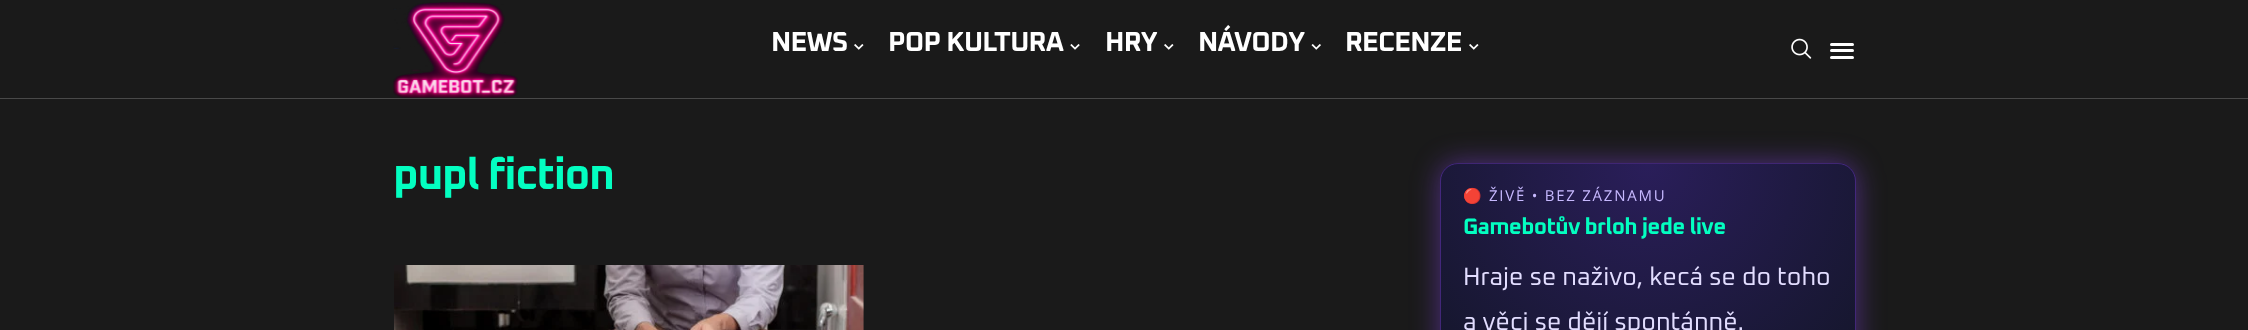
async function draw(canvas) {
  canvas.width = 2248
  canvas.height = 330
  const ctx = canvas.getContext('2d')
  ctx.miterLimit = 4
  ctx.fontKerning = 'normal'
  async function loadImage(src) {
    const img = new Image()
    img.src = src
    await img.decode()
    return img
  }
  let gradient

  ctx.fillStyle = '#1a1a1a'
  ctx.fillRect(0, 0, 2248, 330)
  ctx.fillStyle = '#494949'
  ctx.fillRect(0, 98, 2248, 1)
  ctx.drawImage(await loadImage('image0.png'), 393, 2, 125, 96)
  ctx.letterSpacing = '-0.75px'
  ctx.font = 'bold 27.5px Oxanium'
  ctx.fillStyle = '#fff'
  ctx.fillText('NEWS', 771, 51)
  ctx.drawImage(await loadImage('image1.png'), 854, 44, 10, 6)
  ctx.fillText('POP KULTURA', 888, 51)
  ctx.drawImage(await loadImage('image2.png'), 1070, 44, 10, 6)
  ctx.fillText('HRY', 1105, 51)
  ctx.drawImage(await loadImage('image1.png'), 1164, 44, 10, 6)
  ctx.fillText('NÁVODY', 1198, 51)
  ctx.drawImage(await loadImage('image3.png'), 1311, 44, 10, 6)
  ctx.fillText('RECENZE', 1345, 51)
  ctx.drawImage(await loadImage('image1.png'), 1469, 44, 10, 6)
  ctx.drawImage(await loadImage('image4.png'), 1791, 38, 21, 21)
  ctx.beginPath()
  ctx.roundRect(1830, 43, 24, 3, 1.5)
  ctx.fill()
  ctx.beginPath()
  ctx.roundRect(1830, 49, 24, 3, 1.5)
  ctx.fill()
  ctx.beginPath()
  ctx.roundRect(1830, 56, 24, 3, 1.5)
  ctx.fill()
  ctx.letterSpacing = '-1.4px'
  ctx.font = 'bold 43.75px Oxanium'
  ctx.fillStyle = '#03ffc1'
  ctx.fillText('pupl fiction', 393, 189)
  ctx.drawImage(await loadImage('image5.png'), 394, 265, 470, 65)
  ctx.fillStyle = '#9146ff73'
  ctx.filter = 'blur(14px)'
  ctx.beginPath()
  ctx.roundRect(1440, 163, 416, 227, 18)
  ctx.fill()
  ctx.filter = 'none'
  ctx.save()
  ctx.beginPath()
  ctx.roundRect(1440, 163, 416, 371, 18)
  ctx.clip()
  gradient = ctx.createRadialGradient(1648, -205, 0, 1648, -205, 423)
  gradient.addColorStop(0, '#2a1e5a')
  gradient.addColorStop(0.7, '#14162a')
  ctx.fillStyle = gradient
  ctx.fillRect(1452, 163, 392, 1)
  gradient = ctx.createRadialGradient(1234, 164, 0, 1234, 164, 423)
  gradient.addColorStop(0, '#2a1e5a')
  gradient.addColorStop(0.7, '#14162a')
  ctx.fillStyle = gradient
  ctx.fillRect(1440, 175, 1, 155)
  gradient = ctx.createRadialGradient(1648, 164, 0, 1648, 164, 423)
  gradient.addColorStop(0, '#2a1e5a')
  gradient.addColorStop(0.7, '#14162a')
  ctx.fillStyle = gradient
  ctx.fillRect(1441, 164, 414, 166)
  gradient = ctx.createRadialGradient(2062, 164, 0, 2062, 164, 423)
  gradient.addColorStop(0, '#2a1e5a')
  gradient.addColorStop(0.7, '#14162a')
  ctx.fillStyle = gradient
  ctx.fillRect(1855, 175, 1, 155)
  ctx.restore()
  ctx.beginPath()
  ctx.roundRect(1440.5, 163.5, 415, 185, 17.5)
  ctx.strokeStyle = '#9146ff59'
  ctx.stroke()
  ctx.letterSpacing = '1.75px'
  ctx.font = '15px Noto Color Emoji'
  ctx.fillStyle = '#c7b9ff'
  ctx.fillText('🔴', 1463, 201)
  ctx.font = '15px Open Sans'
  ctx.fillText('ŽIVĚ • BEZ ZÁZNAMU', 1489, 201)
  ctx.letterSpacing = '-0.7px'
  ctx.font = 'bold 22.5px Oxanium'
  ctx.fillStyle = '#03ffc1'
  ctx.fillText('Gamebotův brloh jede live', 1463, 234)
  ctx.letterSpacing = '0px'
  ctx.font = '25px Oxanium'
  ctx.fillStyle = '#e2ddff'
  ctx.fillText('Hraje se naživo, kecá se do toho', 1463, 285)
  ctx.fillText('a věci se dějí spontánně.', 1463, 330)
}

draw(document.querySelector('canvas'))
